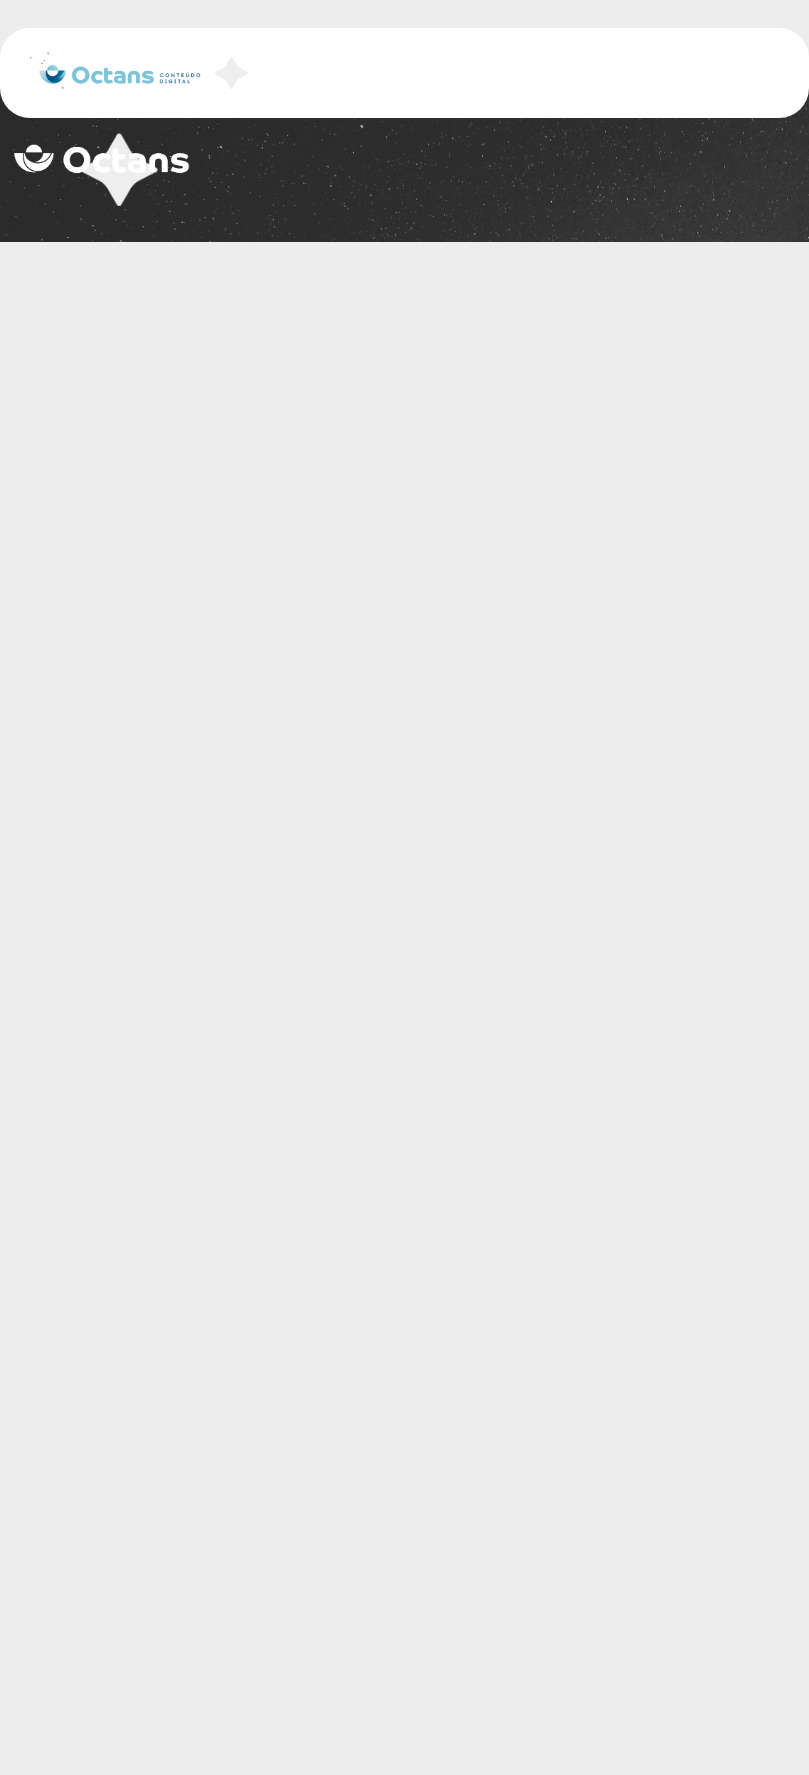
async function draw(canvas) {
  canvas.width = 809
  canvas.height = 1775
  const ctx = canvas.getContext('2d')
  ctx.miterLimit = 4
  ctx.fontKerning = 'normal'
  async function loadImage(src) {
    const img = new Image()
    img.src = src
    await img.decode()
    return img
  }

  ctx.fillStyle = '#ededed'
  ctx.fillRect(0, 0, 809, 1775)
  ctx.drawImage(await loadImage('image2.png'), 0, 88, 809, 154)
  ctx.fillStyle = '#fff'
  ctx.beginPath()
  ctx.roundRect(0, 28, 809, 90, 30)
  ctx.fill()
  ctx.drawImage(await loadImage('image0.png'), 30, 52, 171, 37)
  ctx.drawImage(await loadImage('image1.png'), 214, 57, 34, 32)
  ctx.drawImage(await loadImage('image3.png'), 81, 133, 77, 73)
  ctx.drawImage(await loadImage('image4.png'), 14, 144, 176, 30)
}

draw(document.querySelector('canvas'))
